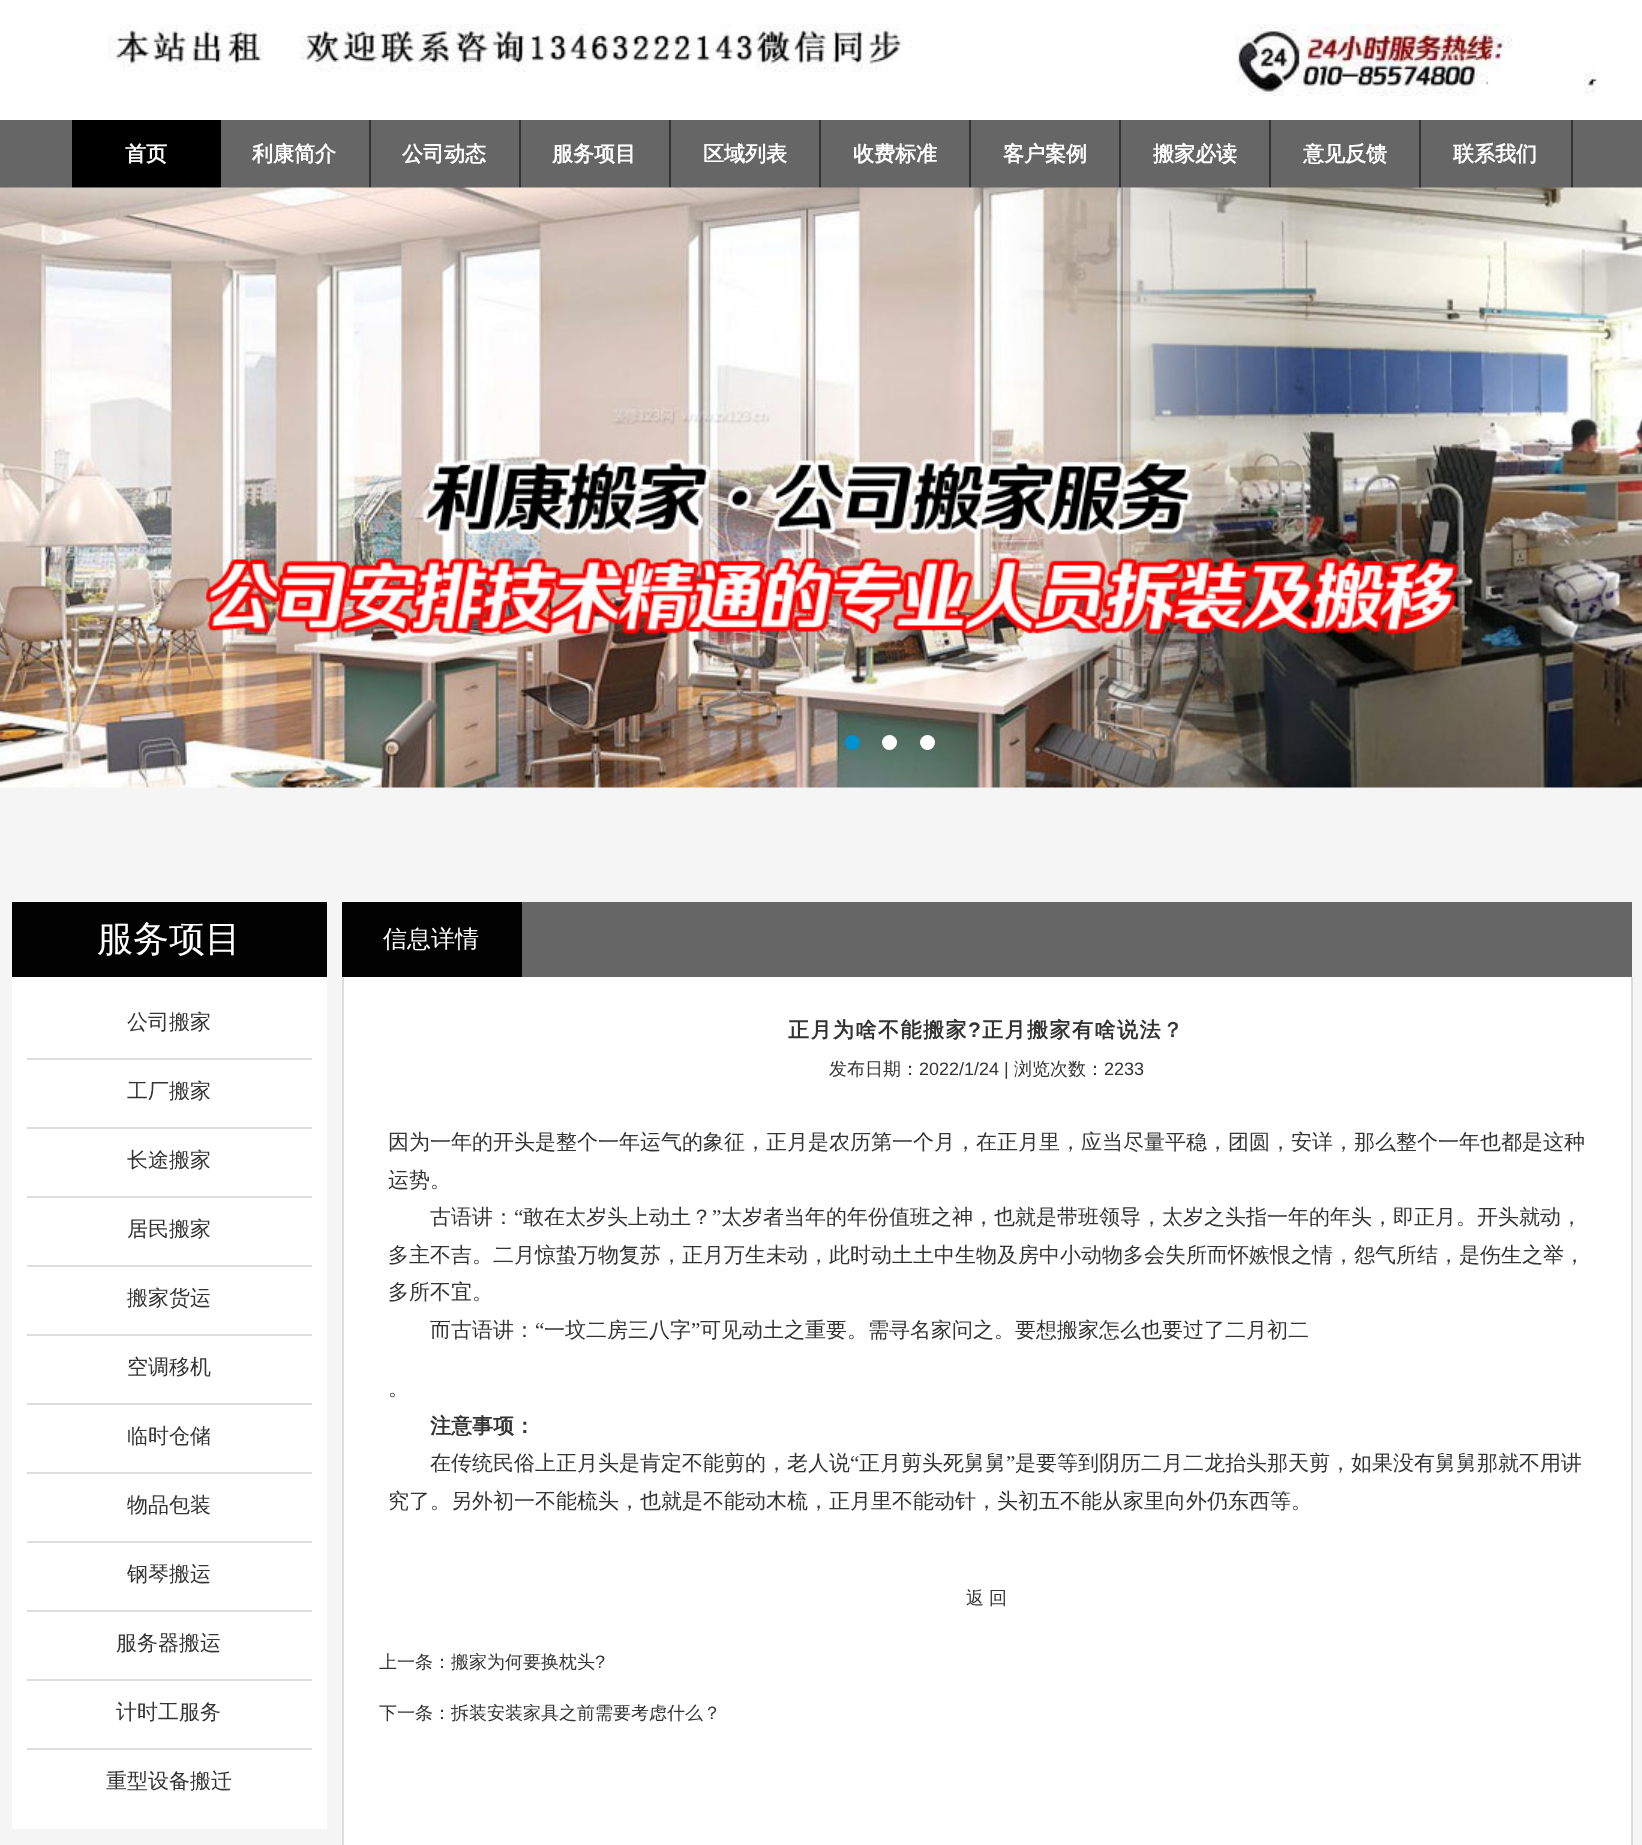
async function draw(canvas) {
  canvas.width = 1642
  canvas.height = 1845
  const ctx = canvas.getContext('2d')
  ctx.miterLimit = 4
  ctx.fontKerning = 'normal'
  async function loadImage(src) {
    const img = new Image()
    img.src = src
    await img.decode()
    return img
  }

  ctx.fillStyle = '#f5f5f5'
  ctx.fillRect(0, 0, 1642, 1845)
  ctx.fillStyle = '#fff'
  ctx.fillRect(0, 0, 1642, 120)
  ctx.drawImage(await loadImage('image0.png'), 108, 23, 1489, 73)
  ctx.fillStyle = '#666'
  ctx.fillRect(0, 120, 1642, 68)
  ctx.fillStyle = '#000'
  ctx.fillRect(72, 120, 149, 68)
  ctx.font = 'bold 21px WenQuanYi Zen Hei'
  ctx.fillStyle = '#fff'
  ctx.fillText('首页', 125, 161)
  ctx.fillStyle = '#333'
  ctx.fillRect(369, 120, 2, 68)
  ctx.fillStyle = '#fff'
  ctx.fillText('利康简介', 252, 161)
  ctx.fillStyle = '#333'
  ctx.fillRect(519, 120, 2, 68)
  ctx.fillStyle = '#fff'
  ctx.fillText('公司动态', 402, 161)
  ctx.fillStyle = '#333'
  ctx.fillRect(669, 120, 2, 68)
  ctx.fillStyle = '#fff'
  ctx.fillText('服务项目', 552, 161)
  ctx.fillStyle = '#333'
  ctx.fillRect(819, 120, 2, 68)
  ctx.fillStyle = '#fff'
  ctx.fillText('区域列表', 703, 161)
  ctx.fillStyle = '#333'
  ctx.fillRect(969, 120, 2, 68)
  ctx.fillStyle = '#fff'
  ctx.fillText('收费标准', 853, 161)
  ctx.fillStyle = '#333'
  ctx.fillRect(1119, 120, 2, 68)
  ctx.fillStyle = '#fff'
  ctx.fillText('客户案例', 1003, 161)
  ctx.fillStyle = '#333'
  ctx.fillRect(1269, 120, 2, 68)
  ctx.fillStyle = '#fff'
  ctx.fillText('搬家必读', 1153, 161)
  ctx.fillStyle = '#333'
  ctx.fillRect(1419, 120, 2, 68)
  ctx.fillStyle = '#fff'
  ctx.fillText('意见反馈', 1303, 161)
  ctx.fillStyle = '#333'
  ctx.fillRect(1571, 120, 2, 68)
  ctx.fillStyle = '#fff'
  ctx.fillText('联系我们', 1453, 161)
  ctx.drawImage(await loadImage('image1.png'), 0, 187, 1642, 601)
  ctx.fillStyle = '#0092ce'
  ctx.beginPath()
  ctx.arc(852.5, 742.5, 7.5, 0, 2 * Math.PI)
  ctx.fill()
  ctx.fillStyle = '#fff'
  ctx.beginPath()
  ctx.arc(889.5, 742.5, 7.5, 0, 2 * Math.PI)
  ctx.fill()
  ctx.beginPath()
  ctx.arc(927.5, 742.5, 7.5, 0, 2 * Math.PI)
  ctx.fill()
  ctx.fillStyle = '#020202'
  ctx.fillRect(12, 902, 315, 75)
  ctx.font = '500 36px WenQuanYi Zen Hei'
  ctx.fillStyle = '#fff'
  ctx.fillText('服务项目', 97, 951)
  ctx.fillRect(12, 977, 315, 852)
  ctx.fillStyle = '#ddd'
  ctx.fillRect(27, 1058, 285, 2)
  ctx.font = '500 21px WenQuanYi Zen Hei'
  ctx.fillStyle = '#333'
  ctx.fillText('公司搬家', 127, 1029)
  ctx.fillStyle = '#ddd'
  ctx.fillRect(27, 1127, 285, 2)
  ctx.fillStyle = '#333'
  ctx.fillText('工厂搬家', 127, 1098)
  ctx.fillStyle = '#ddd'
  ctx.fillRect(27, 1196, 285, 2)
  ctx.fillStyle = '#333'
  ctx.fillText('长途搬家', 127, 1167)
  ctx.fillStyle = '#ddd'
  ctx.fillRect(27, 1265, 285, 2)
  ctx.fillStyle = '#333'
  ctx.fillText('居民搬家', 127, 1236)
  ctx.fillStyle = '#ddd'
  ctx.fillRect(27, 1334, 285, 2)
  ctx.fillStyle = '#333'
  ctx.fillText('搬家货运', 127, 1305)
  ctx.fillStyle = '#ddd'
  ctx.fillRect(27, 1403, 285, 2)
  ctx.fillStyle = '#333'
  ctx.fillText('空调移机', 127, 1374)
  ctx.fillStyle = '#ddd'
  ctx.fillRect(27, 1472, 285, 2)
  ctx.fillStyle = '#333'
  ctx.fillText('临时仓储', 127, 1443)
  ctx.fillStyle = '#ddd'
  ctx.fillRect(27, 1541, 285, 2)
  ctx.fillStyle = '#333'
  ctx.fillText('物品包装', 127, 1512)
  ctx.fillStyle = '#ddd'
  ctx.fillRect(27, 1610, 285, 2)
  ctx.fillStyle = '#333'
  ctx.fillText('钢琴搬运', 127, 1581)
  ctx.fillStyle = '#ddd'
  ctx.fillRect(27, 1679, 285, 2)
  ctx.fillStyle = '#333'
  ctx.fillText('服务器搬运', 116, 1650)
  ctx.fillStyle = '#ddd'
  ctx.fillRect(27, 1748, 285, 2)
  ctx.fillStyle = '#333'
  ctx.fillText('计时工服务', 116, 1719)
  ctx.fillText('重型设备搬迁', 106, 1788)
  ctx.fillStyle = '#020202'
  ctx.fillRect(342, 902, 180, 75)
  ctx.font = '500 24px WenQuanYi Zen Hei'
  ctx.fillStyle = '#fff'
  ctx.fillText('信息详情', 383, 947)
  ctx.fillStyle = '#666'
  ctx.fillRect(522, 902, 1110, 75)
  ctx.fillStyle = '#fff'
  ctx.fillRect(344, 977, 1287, 868)
  ctx.fillStyle = '#ddd'
  ctx.fillRect(1631, 977, 2, 868)
  ctx.fillRect(342, 977, 2, 868)
  ctx.letterSpacing = '1.5px'
  ctx.font = 'bold 21px WenQuanYi Zen Hei'
  ctx.fillStyle = '#333'
  ctx.fillText('正月为啥不能搬家', 788, 1037)
  ctx.font = 'bold 21px Liberation Sans'
  ctx.fillText('?', 968, 1037)
  ctx.font = 'bold 21px WenQuanYi Zen Hei'
  ctx.fillText('正月搬家有啥说法？', 982, 1037)
  ctx.letterSpacing = '0px'
  ctx.font = '500 18px WenQuanYi Zen Hei'
  ctx.fillText('发布日期：', 829, 1075)
  ctx.font = '18px Liberation Sans'
  ctx.fillText('2022/1/24 |', 919, 1075)
  ctx.font = '500 18px WenQuanYi Zen Hei'
  ctx.fillText('浏览次数：', 1014, 1075)
  ctx.font = '18px Liberation Sans'
  ctx.fillText('2233', 1104, 1075)
  ctx.font = '500 21px WenQuanYi Zen Hei'
  ctx.fillText('因为一年的开头是整个一年运气的象征，正月是农历第一个月，在正月里，应当尽量平稳，团圆，安详，那么整个一年也都是这种', 388, 1149)
  ctx.fillText('运势。', 388, 1187)
  ctx.fillText('古语讲：', 430, 1224)
  ctx.font = '21px Liberation Serif'
  ctx.fillText('“', 514, 1224)
  ctx.font = '500 21px WenQuanYi Zen Hei'
  ctx.fillText('敢在太岁头上动土？', 523, 1224)
  ctx.font = '21px Liberation Serif'
  ctx.fillText('”', 712, 1224)
  ctx.font = '500 21px WenQuanYi Zen Hei'
  ctx.fillText('太岁者当年的年份值班之神，也就是带班领导，太岁之头指一年的年头，即正月。开头就动，', 721, 1224)
  ctx.fillText('多主不吉。二月惊蛰万物复苏，正月万生未动，此时动土土中生物及房中小动物多会失所而怀嫉恨之情，怨气所结，是伤生之举，', 388, 1262)
  ctx.fillText('多所不宜。', 388, 1299)
  ctx.fillText('而古语讲：', 430, 1337)
  ctx.font = '21px Liberation Serif'
  ctx.fillText('“', 535, 1337)
  ctx.font = '500 21px WenQuanYi Zen Hei'
  ctx.fillText('一坟二房三八字', 544, 1337)
  ctx.font = '21px Liberation Serif'
  ctx.fillText('”', 691, 1337)
  ctx.font = '500 21px WenQuanYi Zen Hei'
  ctx.fillText('可见动土之重要。需寻名家问之。要想搬家怎么也要过了二月初二', 700, 1337)
  ctx.fillText('。', 388, 1395)
  ctx.font = 'bold 21px WenQuanYi Zen Hei'
  ctx.fillText('注意事项：', 430, 1433)
  ctx.font = '500 21px WenQuanYi Zen Hei'
  ctx.fillText('在传统民俗上正月头是肯定不能剪的，老人说', 430, 1470)
  ctx.font = '21px Liberation Serif'
  ctx.fillText('“', 850, 1470)
  ctx.font = '500 21px WenQuanYi Zen Hei'
  ctx.fillText('正月剪头死舅舅', 859, 1470)
  ctx.font = '21px Liberation Serif'
  ctx.fillText('”', 1006, 1470)
  ctx.font = '500 21px WenQuanYi Zen Hei'
  ctx.fillText('是要等到阴历二月二龙抬头那天剪，如果没有舅舅那就不用讲', 1015, 1470)
  ctx.fillText('究了。另外初一不能梳头，也就是不能动木梳，正月里不能动针，头初五不能从家里向外仍东西等。', 388, 1508)
  ctx.font = '500 18px WenQuanYi Zen Hei'
  ctx.fillText('返', 966, 1604)
  ctx.fillText('回', 989, 1604)
  ctx.fillText('上一条：搬家为何要换枕头', 379, 1668)
  ctx.font = '18px Liberation Sans'
  ctx.fillText('?', 595, 1668)
  ctx.font = '500 18px WenQuanYi Zen Hei'
  ctx.fillText('下一条：拆装安装家具之前需要考虑什么？', 379, 1719)
}

draw(document.querySelector('canvas'))
